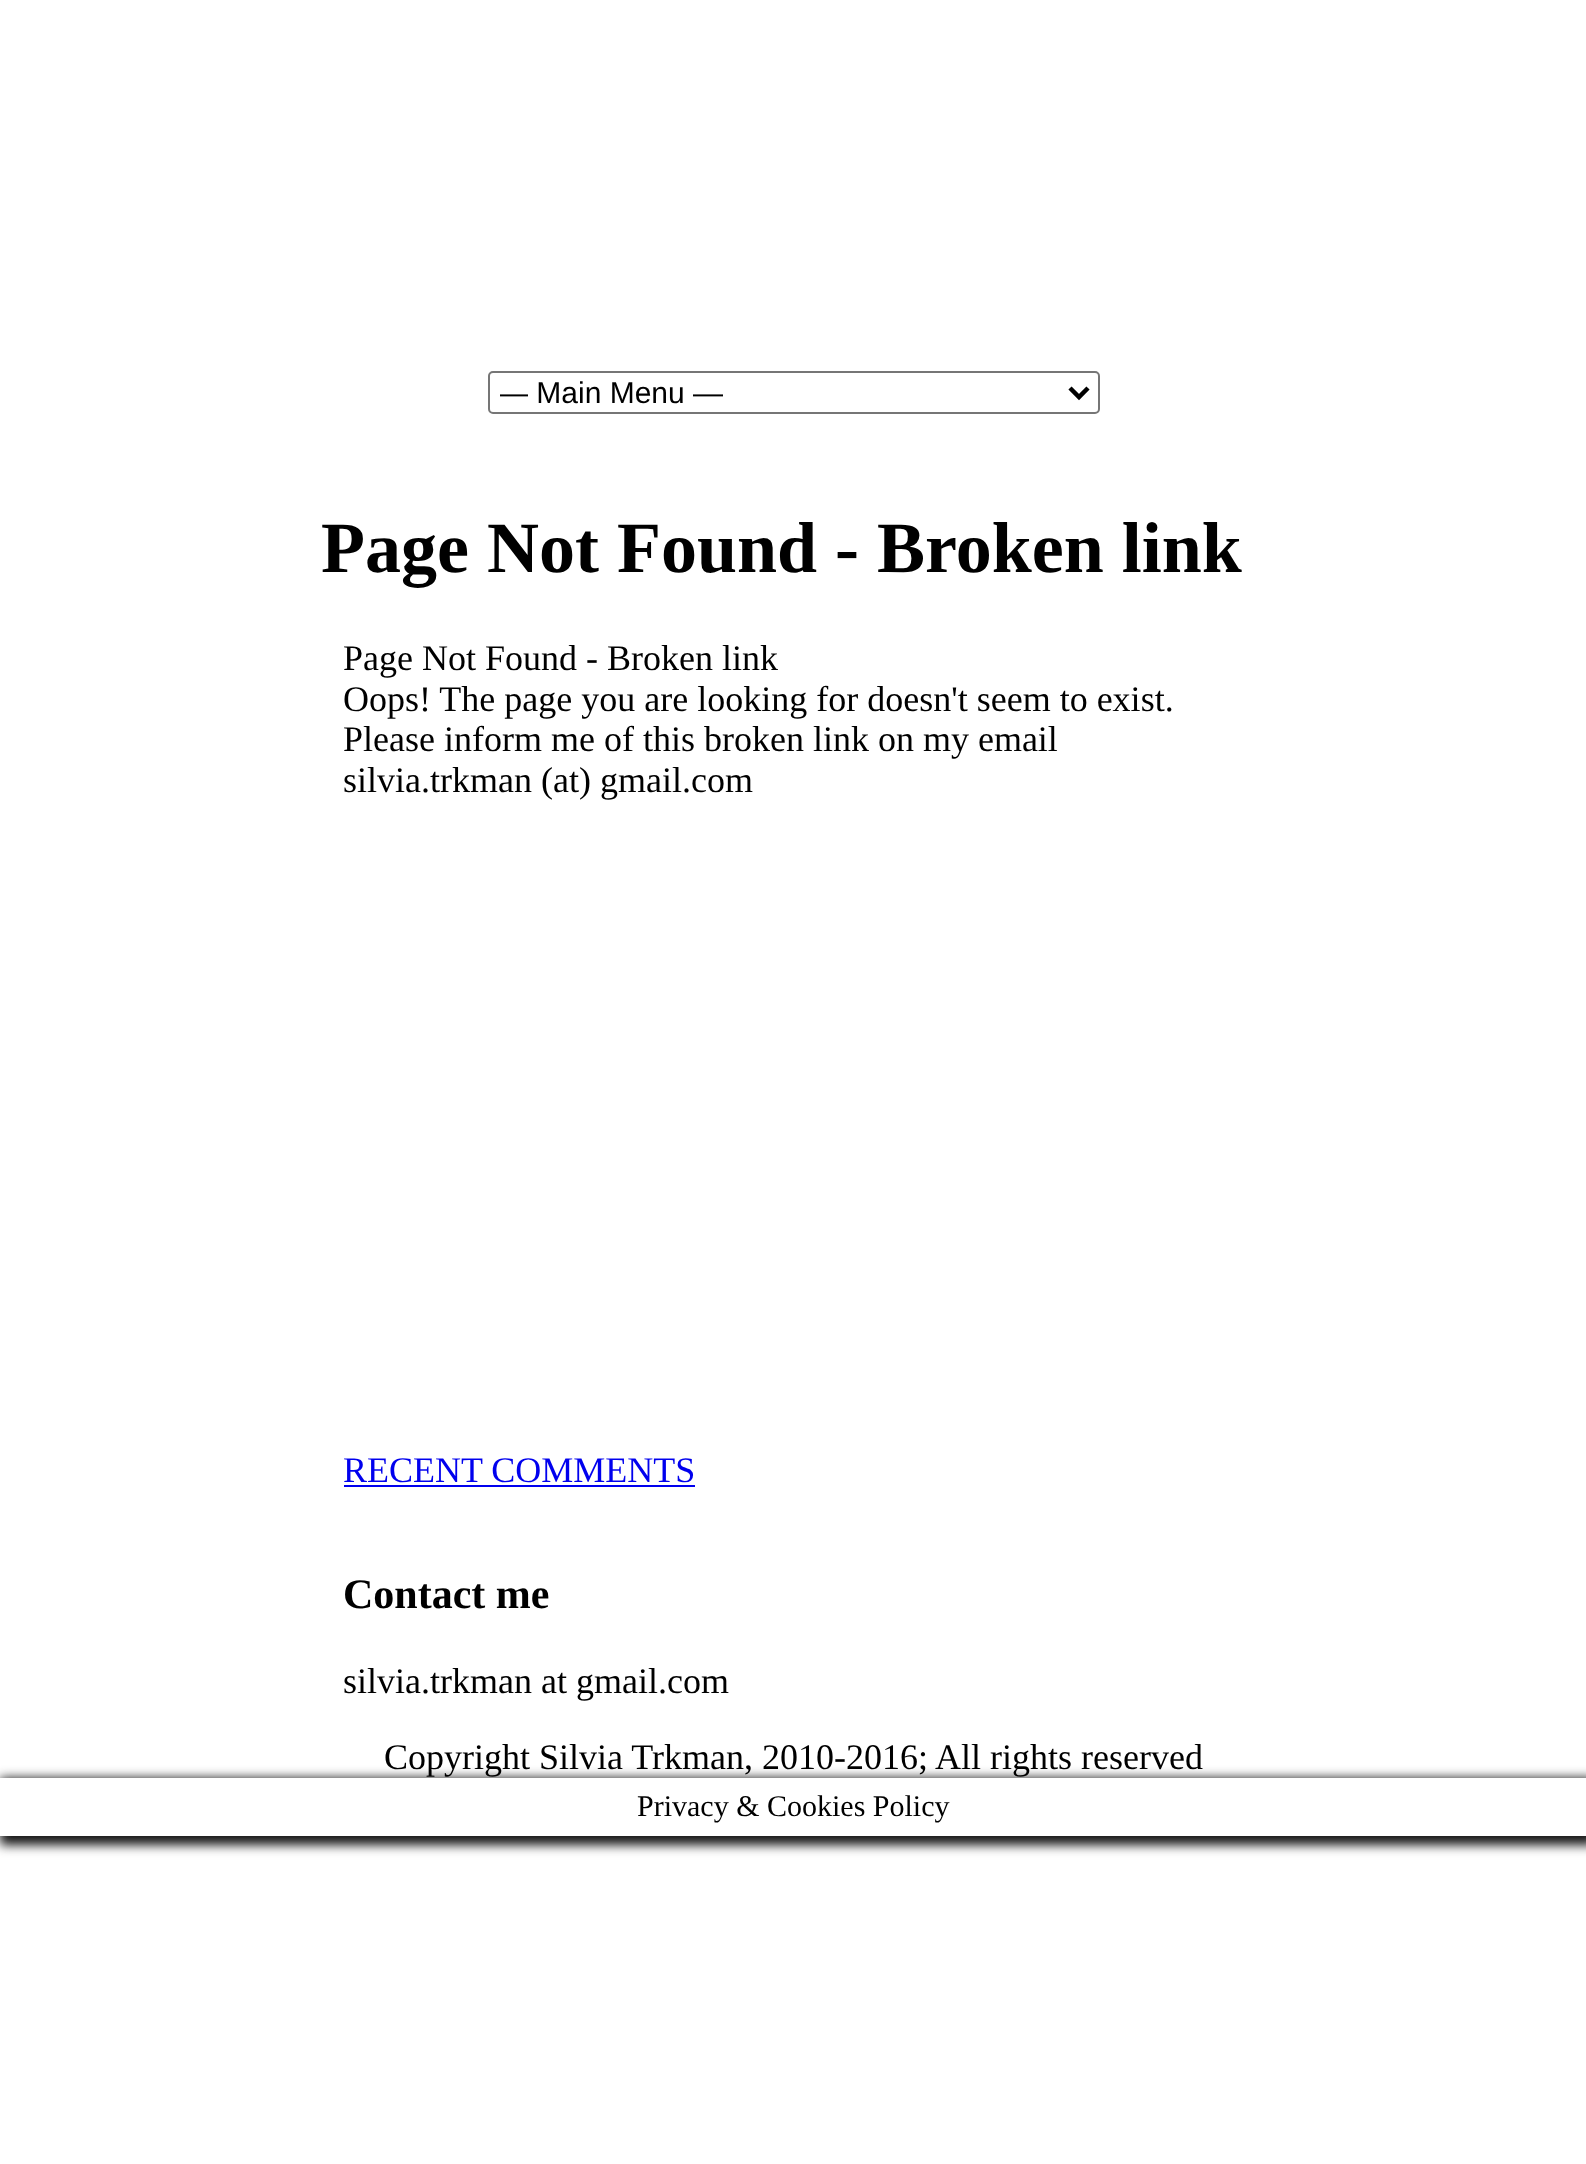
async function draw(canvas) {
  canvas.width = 1586
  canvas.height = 2164
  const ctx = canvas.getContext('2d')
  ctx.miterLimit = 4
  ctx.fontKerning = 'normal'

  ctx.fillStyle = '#fff'
  ctx.fillRect(0, 0, 1586, 2164)
  ctx.beginPath()
  ctx.roundRect(489, 372, 610, 41, 4)
  ctx.strokeStyle = '#767676'
  ctx.lineWidth = 2
  ctx.stroke()
  ctx.beginPath()
  ctx.moveTo(1070, 388)
  ctx.lineTo(1079, 397)
  ctx.lineTo(1088, 388)
  ctx.strokeStyle = '#000'
  ctx.lineWidth = 4.5
  ctx.stroke()
  ctx.save()
  ctx.beginPath()
  ctx.rect(500, 374, 562, 38)
  ctx.clip()
  ctx.font = '30px Liberation Sans'
  ctx.fillStyle = '#000'
  ctx.fillText('— Main Menu —', 498, 403)
  ctx.restore()
  ctx.font = 'bold 72px Liberation Serif'
  ctx.fillStyle = '#000'
  ctx.fillText('Page Not Found - Broken link', 321, 572)
  ctx.font = '36px Liberation Serif'
  ctx.fillText('Page Not Found - Broken link', 343, 670)
  ctx.fillText('Oops! The page you are looking for doesn\'t seem to exist.', 343, 711)
  ctx.fillText('Please inform me of this broken link on my email', 343, 751)
  ctx.fillText('silvia.trkman (at) gmail.com', 343, 792)
  ctx.fillStyle = '#00e'
  ctx.fillText('RECENT COMMENTS', 343, 1482)
  ctx.fillRect(344, 1485, 351, 2)
  ctx.font = 'bold 42px Liberation Serif'
  ctx.fillStyle = '#000'
  ctx.fillText('Contact me', 343, 1608)
  ctx.font = '36px Liberation Serif'
  ctx.fillText('silvia.trkman at gmail.com', 343, 1693)
  ctx.save()
  ctx.beginPath()
  ctx.moveTo(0, 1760)
  ctx.lineTo(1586, 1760)
  ctx.lineTo(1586, 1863)
  ctx.lineTo(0, 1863)
  ctx.closePath()
  ctx.moveTo(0, 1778)
  ctx.lineTo(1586, 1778)
  ctx.lineTo(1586, 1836)
  ctx.lineTo(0, 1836)
  ctx.closePath()
  ctx.clip('evenodd')
  ctx.fillStyle = '#161616'
  ctx.filter = 'blur(5.5px)'
  ctx.beginPath()
  ctx.rect(0, 1778, 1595, 67)
  ctx.fill()
  ctx.filter = 'none'
  ctx.restore()
  ctx.fillText('Copyright Silvia Trkman, 2010-2016; All rights reserved', 384, 1769)
  ctx.font = '30px Liberation Serif'
  ctx.fillText('Privacy & Cookies Policy', 637, 1816)
}

draw(document.querySelector('canvas'))
